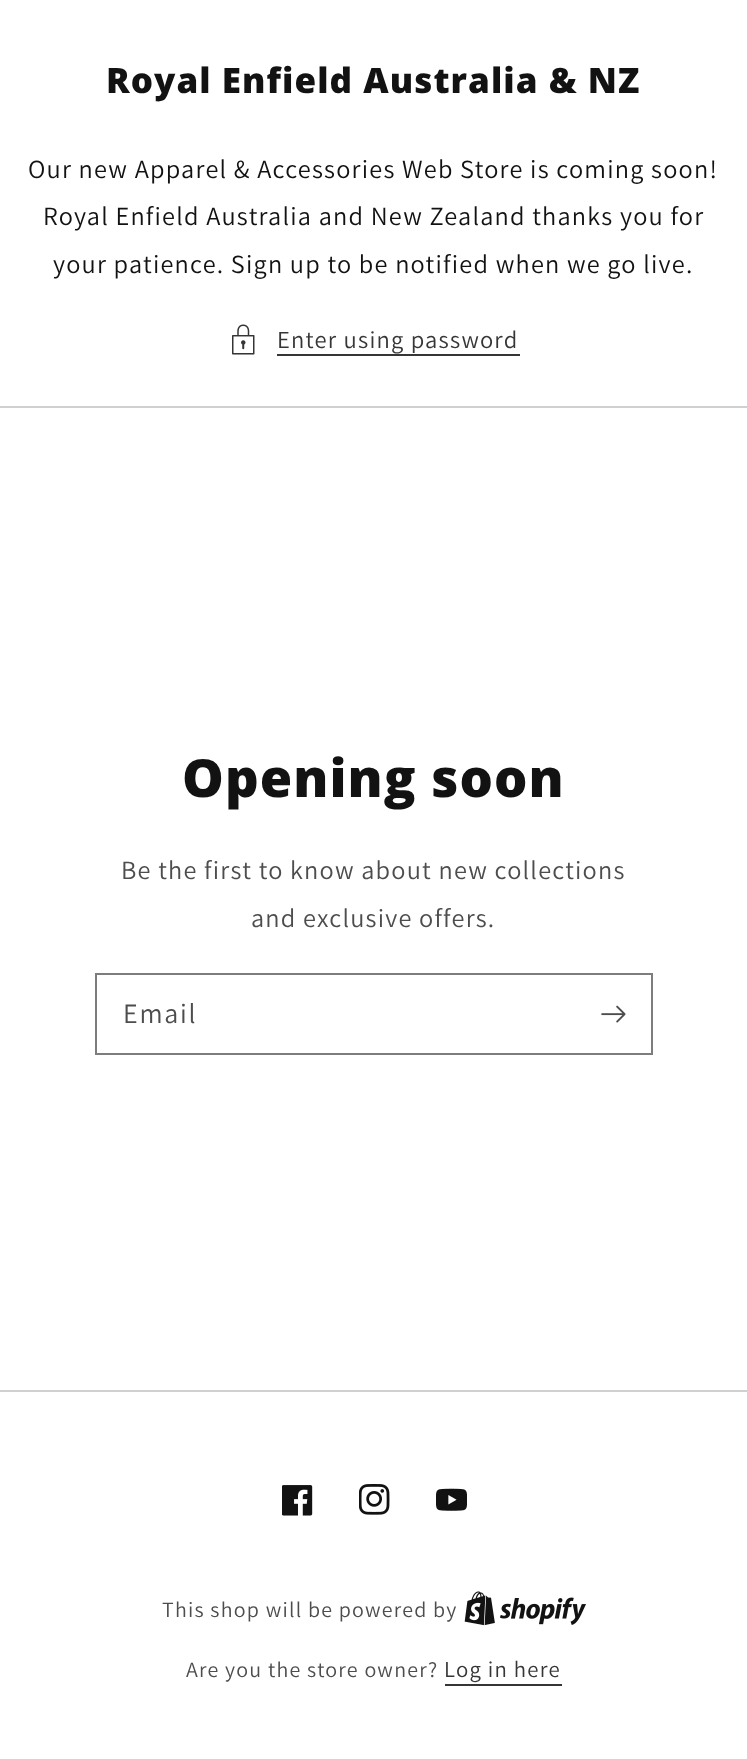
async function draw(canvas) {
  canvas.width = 747
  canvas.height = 1759
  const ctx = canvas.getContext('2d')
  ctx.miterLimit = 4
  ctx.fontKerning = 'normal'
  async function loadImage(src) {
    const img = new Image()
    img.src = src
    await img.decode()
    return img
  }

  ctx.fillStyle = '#fff'
  ctx.fillRect(0, 0, 747, 1759)
  ctx.letterSpacing = '1.05px'
  ctx.font = '800 35px Open Sans'
  ctx.fillStyle = '#121212'
  ctx.fillText('Royal Enfield Australia & NZ', 106, 93)
  ctx.letterSpacing = '1.22px'
  ctx.font = '26.25px Assistant'
  ctx.fillText('Our new Apparel & Accessories Web Store is coming soon!', 28, 178)
  ctx.fillText('Royal Enfield Australia and New Zealand thanks you for', 43, 225)
  ctx.fillText('your patience. Sign up to be notified when we go live.', 53, 273)
  ctx.drawImage(await loadImage('image0.png'), 232, 324, 23, 31)
  ctx.font = '24.5px Assistant'
  ctx.fillStyle = '#363636'
  ctx.fillText('Enter using password', 277, 348)
  ctx.fillRect(277, 354, 243, 2)
  ctx.fillStyle = '#d0d0d0'
  ctx.fillRect(0, 406, 747, 2)
  ctx.letterSpacing = '1.05px'
  ctx.font = '800 52.5px Open Sans'
  ctx.fillStyle = '#121212'
  ctx.fillText('Opening soon', 182, 797)
  ctx.letterSpacing = '1.22px'
  ctx.font = '26.25px Assistant'
  ctx.fillStyle = '#4d4d4d'
  ctx.fillText('Be the first to know about new collections', 121, 879)
  ctx.fillText('and exclusive offers.', 251, 927)
  ctx.strokeStyle = '#7d7d7d'
  ctx.lineWidth = 2
  ctx.strokeRect(96, 974, 556, 80)
  ctx.letterSpacing = '1.75px'
  ctx.font = '28px Assistant'
  ctx.fillText('Email', 123, 1023)
  ctx.drawImage(await loadImage('image1.png'), 601, 1005, 25, 18)
  ctx.fillStyle = '#d0d0d0'
  ctx.fillRect(0, 1390, 747, 2)
  ctx.drawImage(await loadImage('image2.png'), 282, 1485, 31, 31)
  ctx.drawImage(await loadImage('image3.png'), 359, 1484, 31, 31)
  ctx.drawImage(await loadImage('image4.png'), 436, 1488, 31, 23)
  ctx.letterSpacing = '1.22px'
  ctx.font = '21.9px Assistant'
  ctx.fillStyle = '#4d4d4d'
  ctx.fillText('This shop will be powered by', 162, 1617)
  ctx.drawImage(await loadImage('image5.png'), 464, 1591, 122, 35)
  ctx.fillText('Are you the store owner?', 186, 1677)
  ctx.font = '22.75px Assistant'
  ctx.fillStyle = '#363636'
  ctx.fillText('Log in here', 444, 1677)
  ctx.fillRect(445, 1684, 117, 2)
}

draw(document.querySelector('canvas'))
